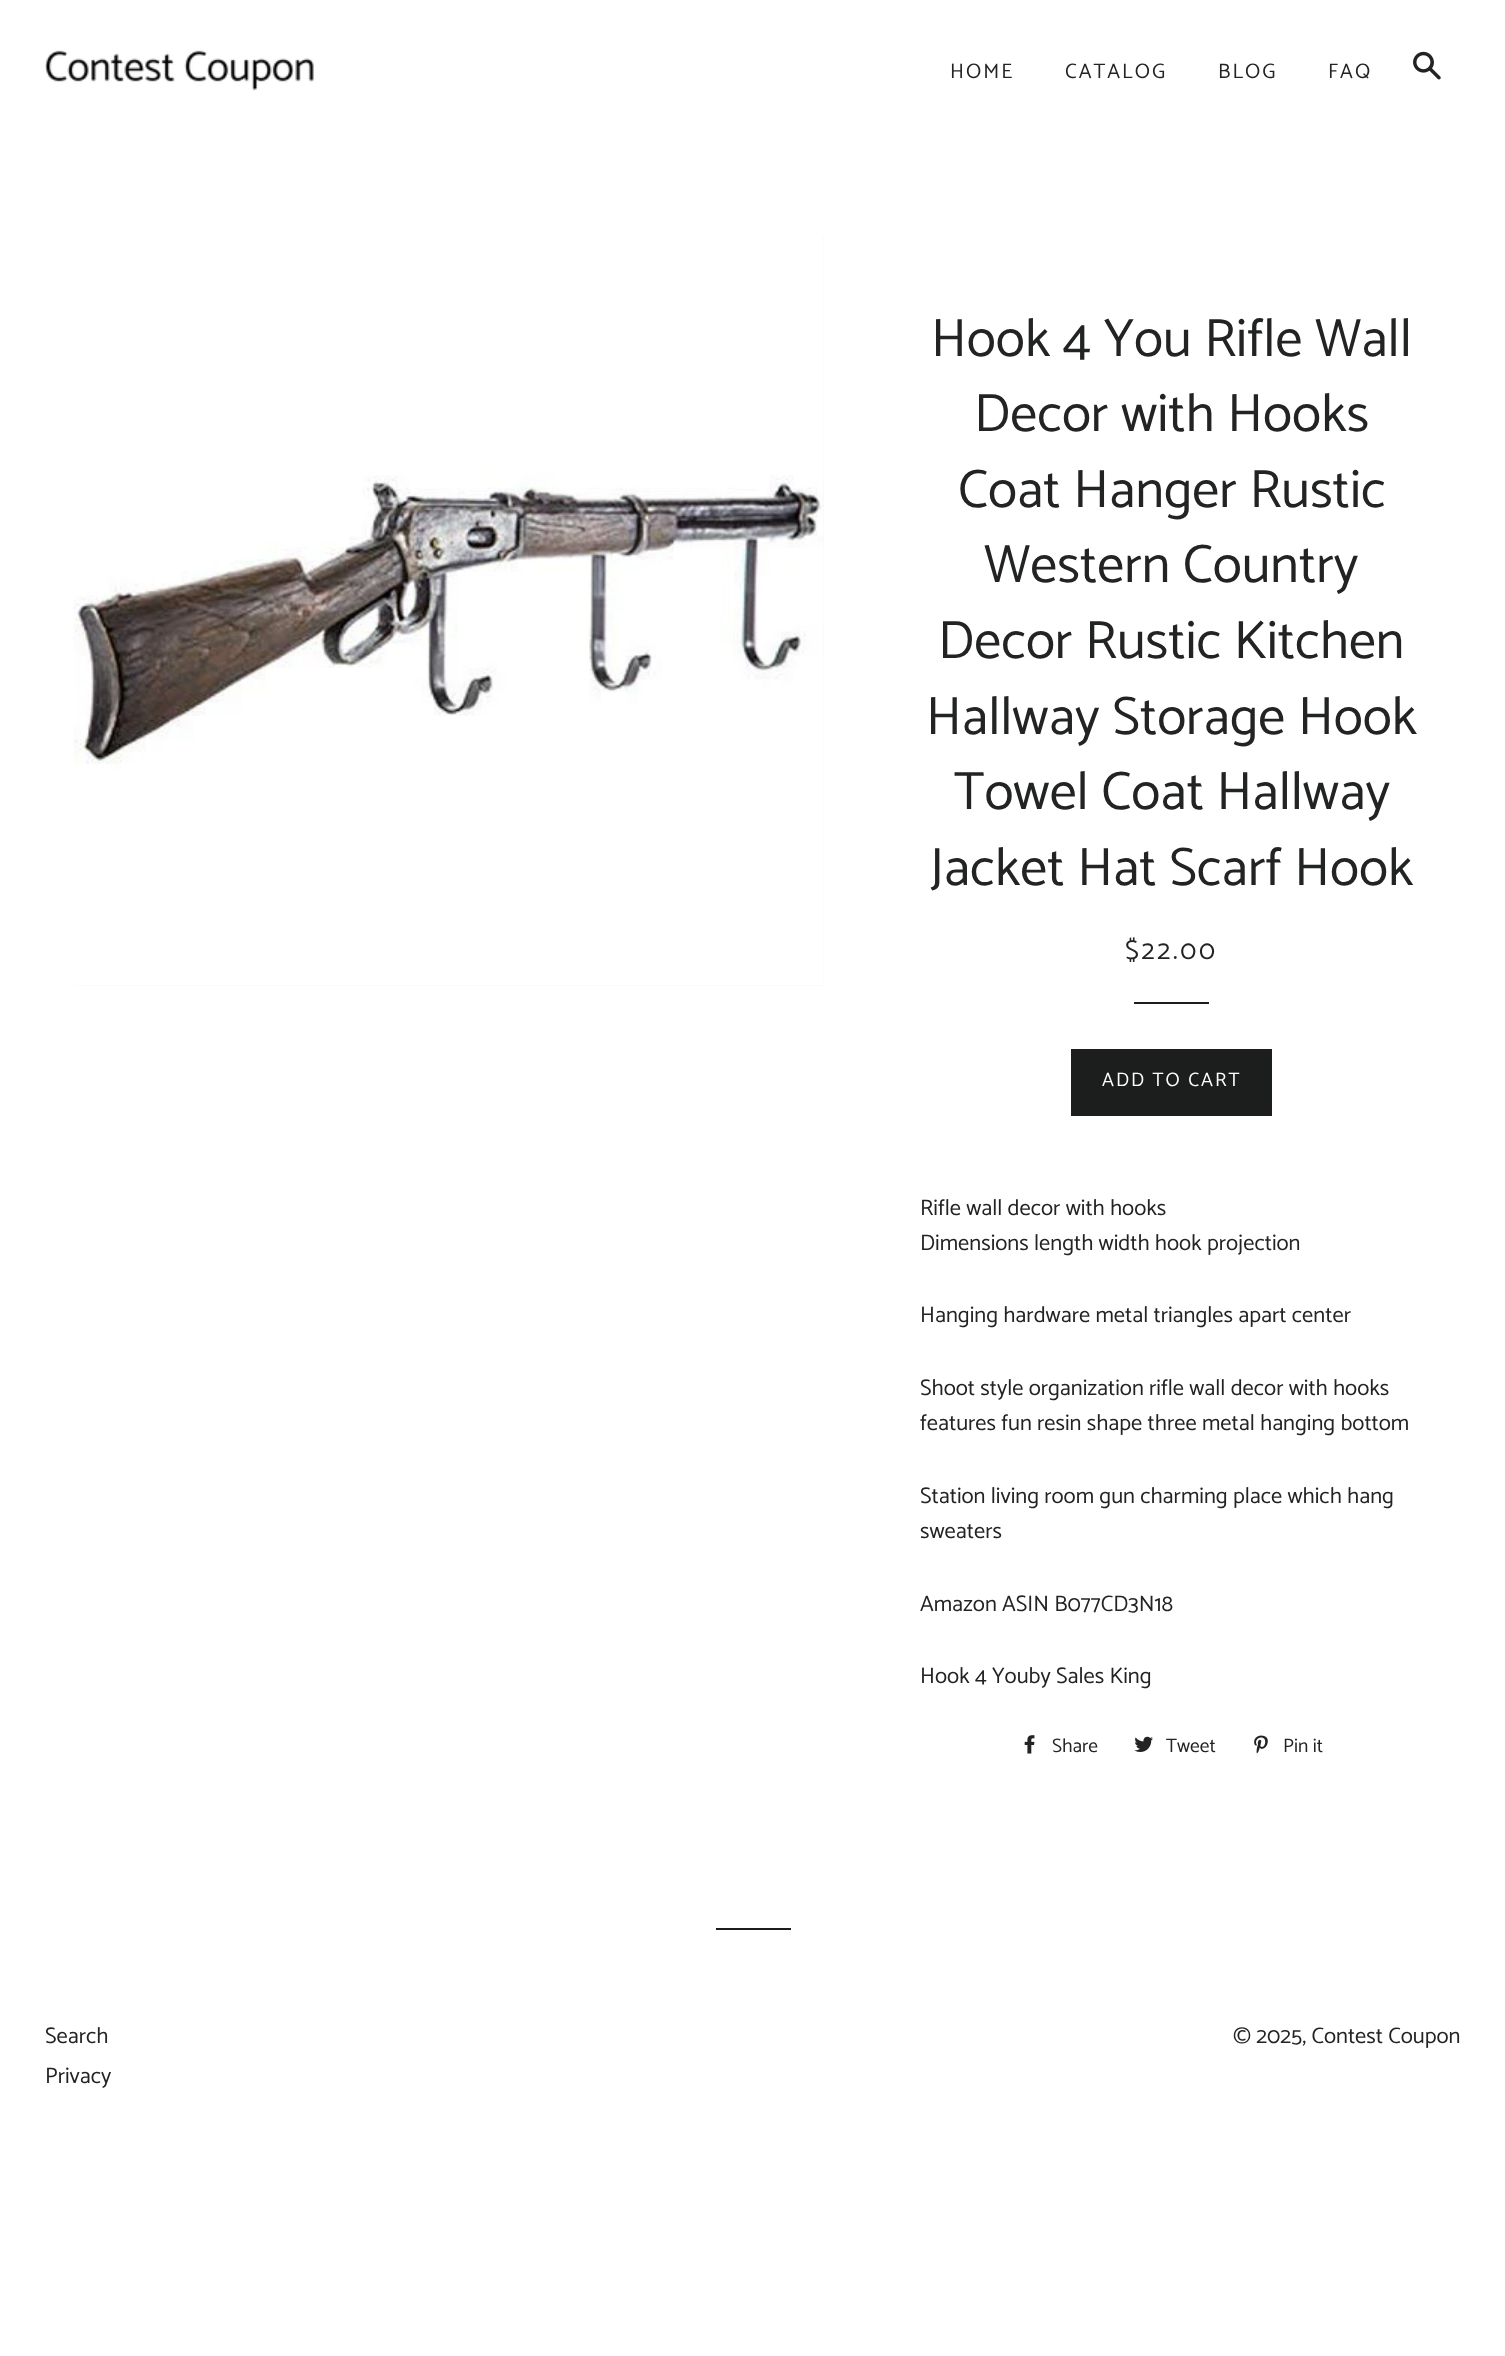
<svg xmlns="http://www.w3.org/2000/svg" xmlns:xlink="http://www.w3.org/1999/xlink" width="1505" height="2356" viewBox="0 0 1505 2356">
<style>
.cls-1{font:21px Catamaran;letter-spacing:2px;fill:#222323}
.cls-2{font:54px Catamaran;fill:#222323}
.cls-3{font:27px Catamaran;letter-spacing:2.75px;fill:#222323}
.cls-4{font:19.5px Catamaran;letter-spacing:2px;fill:#ffffff}
.cls-5{font:22.5px Catamaran;fill:#222323}
.cls-6{font:19.5px Catamaran;fill:#222323}
</style>
<rect width="100%" height="100%" fill="#ffffff"/>
<image xlink:href="image0.png" x="45" y="50" width="269" height="41"/>
<image xlink:href="image1.png" x="1413" y="51" width="28" height="29"/>
<rect fill="#f7f7f7" x="74" y="236" width="750" height="750"/>
<image xlink:href="image2.png" x="73" y="236" width="751" height="750"/>
<rect fill="#1c1d1d" x="1134" y="1002" width="75" height="2"/>
<rect fill="#1c1d1d" x="1071" y="1049" width="201" height="67"/>
<image xlink:href="image3.png" x="1024" y="1735" width="11" height="19"/>
<image xlink:href="image4.png" x="1134" y="1736" width="19" height="16"/>
<image xlink:href="image5.png" x="1254" y="1735" width="14" height="19"/>
<rect fill="#1c1d1d" x="716" y="1928" width="75" height="2"/>
<text class="cls-1" x="950" y="78">HOME</text>
<text class="cls-1" x="1065" y="78">CATALOG</text>
<text class="cls-1" x="1218" y="78">BLOG</text>
<text class="cls-1" x="1328" y="78">FAQ</text>
<text class="cls-2" x="931" y="356">Hook 4 You Rifle Wall</text>
<text class="cls-2" x="974" y="431">Decor with Hooks</text>
<text class="cls-2" x="958" y="507">Coat Hanger Rustic</text>
<text class="cls-2" x="984" y="582">Western Country</text>
<text class="cls-2" x="938" y="658">Decor Rustic Kitchen</text>
<text class="cls-2" x="926" y="734">Hallway Storage Hook</text>
<text class="cls-2" x="954" y="809">Towel Coat Hallway</text>
<text class="cls-2" x="930" y="885">Jacket Hat Scarf Hook</text>
<text class="cls-3" x="1125" y="959">$22.00</text>
<text class="cls-4" x="1102" y="1086">ADD TO CART</text>
<text class="cls-5"><tspan x="920" y="1215">Rifle wall decor with hooks</tspan><tspan x="920" y="1250">Dimensions length width hook projection</tspan></text>
<text class="cls-5" x="920" y="1322">Hanging hardware metal triangles apart center</text>
<text class="cls-5"><tspan x="920" y="1395">Shoot style organization rifle wall decor with hooks</tspan><tspan x="920" y="1430">features fun resin shape three metal hanging bottom</tspan></text>
<text class="cls-5"><tspan x="920" y="1503">Station living room gun charming place which hang</tspan><tspan x="920" y="1538">sweaters</tspan></text>
<text class="cls-5" x="920" y="1611">Amazon ASIN B077CD3N18</text>
<text class="cls-5" x="920" y="1683">Hook 4 Youby Sales King</text>
<text class="cls-6" x="1052" y="1752">Share</text>
<text class="cls-6" x="1166" y="1752">Tweet</text>
<text class="cls-6" x="1283" y="1752">Pin it</text>
<text class="cls-5"><tspan x="45" y="2043">Search</tspan><tspan x="45" y="2083">Privacy</tspan></text>
<text class="cls-5" x="1233" y="2043">© 2025, Contest Coupon</text>
</svg>
